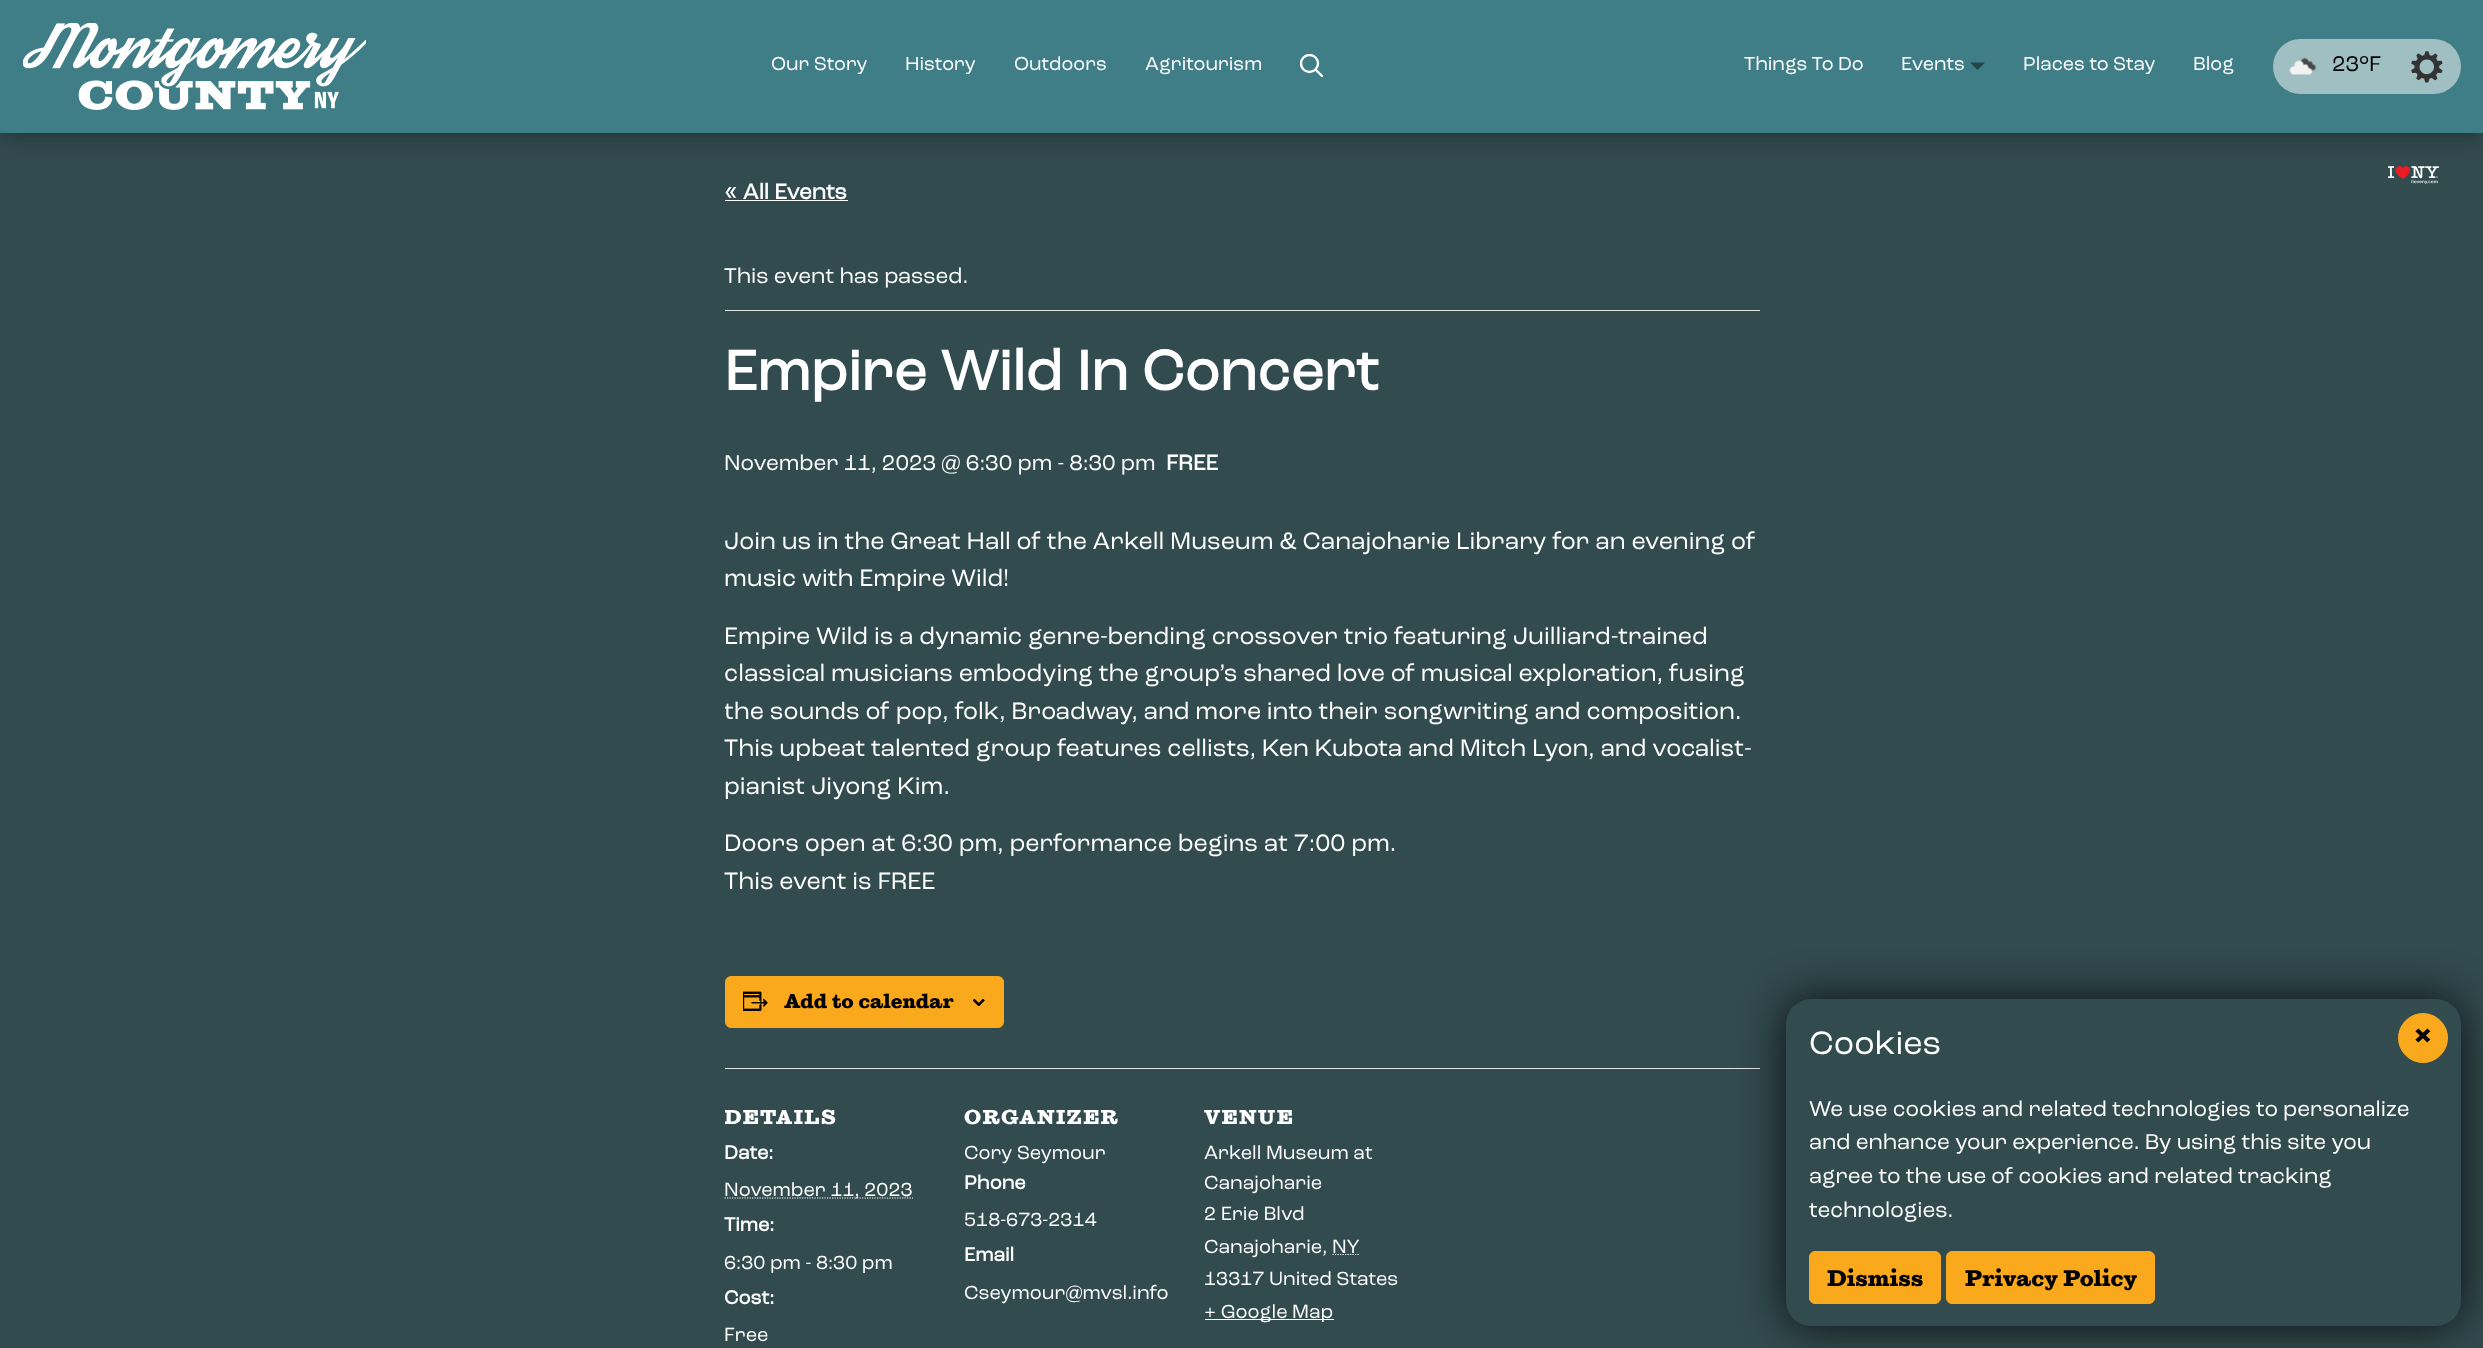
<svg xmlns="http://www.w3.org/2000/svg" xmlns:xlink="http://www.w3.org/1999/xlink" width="2483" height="1348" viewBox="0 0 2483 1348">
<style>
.cls-1{font:19.75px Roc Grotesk;fill:#ffffff}
.cls-2{font:22.5px Roc Grotesk;fill:#000000}
.cls-3{font:bold 22.5px Roc Grotesk;fill:#ffffff}
.cls-4{font:22.5px Roc Grotesk;fill:#ffffff}
.cls-5{font:bold 58.75px Roc Grotesk;fill:#ffffff}
.cls-6{font:25px Roc Grotesk;fill:#ffffff}
.cls-7{font:900 20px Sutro;fill:#000000}
.cls-8{font:900 20px Sutro;letter-spacing:1.25px;fill:#ffffff}
.cls-9{font:bold 20px Roc Grotesk;fill:#ffffff}
.cls-10{font:20px Roc Grotesk;fill:#ffffff}
.cls-11{font:34px Roc Grotesk;fill:#ffffff}
.cls-12{font:900 34px Sutro;fill:#000000}
.cls-13{font:900 22.5px Sutro;fill:#000000}
</style>
<defs>
<clipPath id="clip1"><rect x="1300" y="54" width="24" height="24"/></clipPath>
<clipPath id="clip2"><rect x="725" y="524" width="1035" height="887"/></clipPath>
</defs>
<rect width="100%" height="100%" fill="#324b4f"/>
<rect fill="#000000" fill-opacity="0.4" filter="blur(12.5px)" x="0" y="0" width="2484" height="133"/>
<rect fill="#407e87" x="0" y="0" width="2483" height="133"/>
<image xlink:href="image0.png" x="23" y="23" width="343" height="87"/>
<g clip-path="url(#clip1)">
<circle fill="none" stroke="#ffffff" stroke-width="2.4" cx="1309.5" cy="63.5" r="8.5"/>
</g>
<path fill="none" stroke="#ffffff" stroke-width="2.4" stroke-linecap="round" d="M1316 70L1322 76"/>
<path fill="#23454a" d="M1970 62.5H1985L1977.5 70Z"/>
<rect fill="#a0bfc3" x="2273" y="39" width="188" height="55" rx="27.5"/>
<image xlink:href="image1.png" x="2289" y="57" width="28" height="18"/>
<image xlink:href="image2.png" x="2411" y="51" width="32" height="32"/>
<image xlink:href="image3.png" x="2388" y="166" width="51" height="18"/>
<rect fill="#ffffff" x="725" y="200" width="123" height="1"/>
<rect fill="#e4e4e4" x="725" y="310" width="1035" height="1"/>
<rect fill="#fba91c" stroke="#fba91c" x="725.5" y="976.5" width="278" height="51" rx="5.5"/>
<image xlink:href="image4.png" x="743" y="991" width="25" height="20"/>
<image xlink:href="image5.png" x="973" y="999" width="12" height="7"/>
<rect fill="#e4e4e4" x="725" y="1068" width="1035" height="1"/>
<path fill="none" stroke="#ffffff" stroke-width="1.2" stroke-dasharray="1.25 1.25" d="M724.5 1198H913"/>
<path fill="none" stroke="#ffffff" stroke-width="1.2" stroke-dasharray="1.25 1.25" d="M1332.5 1254.5H1360"/>
<rect fill="#ffffff" x="1205" y="1319" width="129" height="1"/>
<rect fill="#000000" fill-opacity="0.8" filter="blur(22.5px)" x="1786" y="999" width="675" height="327" rx="25"/>
<rect fill="#324b4f" x="1786" y="999" width="675" height="327" rx="25"/>
<circle fill="#fba91c" stroke="#fba91c" cx="2423" cy="1038" r="24.5"/>
<rect fill="#fba91c" stroke="#fba91c" x="1809.5" y="1251.5" width="131" height="52" rx="5.5"/>
<rect fill="#fba91c" stroke="#fba91c" x="1946.5" y="1251.5" width="208" height="52" rx="5.5"/>
<text class="cls-1" x="771" y="70">Our Story</text>
<text class="cls-1" x="905" y="70">History</text>
<text class="cls-1" x="1014" y="70">Outdoors</text>
<text class="cls-1" x="1145" y="70">Agritourism</text>
<text class="cls-1" x="1744" y="70">Things To Do</text>
<text class="cls-1" x="1901" y="70">Events</text>
<text class="cls-1" x="2023" y="70">Places to Stay</text>
<text class="cls-1" x="2193" y="70">Blog</text>
<text class="cls-2" x="2332" y="71">23°F</text>
<text class="cls-3" x="724" y="199">« All Events</text>
<text class="cls-4" x="724" y="283">This event has passed.</text>
<text class="cls-5" x="724" y="390">Empire Wild In Concert</text>
<text class="cls-4" x="724" y="470">November 11, 2023 @ 6:30 pm - 8:30 pm</text>
<text class="cls-3" x="1166" y="470">FREE</text>
<text class="cls-6"><tspan x="724" y="549">Join us in the Great Hall of the Arkell Museum &amp; Canajoharie Library for an evening of</tspan><tspan x="724" y="586">music with Empire Wild!</tspan></text>
<text class="cls-6"><tspan x="724" y="644">Empire Wild is a dynamic genre-bending crossover trio featuring Juilliard-trained</tspan><tspan x="724" y="681">classical musicians embodying the group’s shared love of musical exploration, fusing</tspan></text>
<g clip-path="url(#clip2)">
<text class="cls-6" x="724" y="719">the sounds of pop, folk, Broadway, and more into their songwriting and composition.</text>
</g>
<text class="cls-6"><tspan x="724" y="756">This upbeat talented group features cellists, Ken Kubota and Mitch Lyon, and vocalist-</tspan><tspan x="724" y="794">pianist Jiyong Kim.</tspan></text>
<text class="cls-6"><tspan x="724" y="851">Doors open at 6:30 pm, performance begins at 7:00 pm.</tspan><tspan x="724" y="889">This event is FREE</tspan></text>
<text class="cls-7" x="784" y="1008">Add to calendar</text>
<g clip-path="url(#clip2)">
<text class="cls-8" x="724" y="1124">DETAILS</text>
</g>
<text class="cls-9" x="724" y="1159">Date:</text>
<text class="cls-10" x="724" y="1196">November 11, 2023</text>
<text class="cls-9" x="724" y="1231">Time:</text>
<text class="cls-10" x="724" y="1269">6:30 pm - 8:30 pm</text>
<text class="cls-9" x="724" y="1304">Cost:</text>
<text class="cls-10" x="724" y="1341">Free</text>
<text class="cls-8" x="964" y="1124">ORGANIZER</text>
<text class="cls-10" x="964" y="1159">Cory Seymour</text>
<text class="cls-9" x="964" y="1189">Phone</text>
<text class="cls-10" x="964" y="1226">518-673-2314</text>
<text class="cls-9" x="964" y="1261">Email</text>
<text class="cls-10" x="964" y="1299">Cseymour@mvsl.info</text>
<text class="cls-8" x="1204" y="1124">VENUE</text>
<text class="cls-10"><tspan x="1204" y="1159">Arkell Museum at</tspan><tspan x="1204" y="1189">Canajoharie</tspan><tspan x="1204" y="1220">2 Erie Blvd</tspan><tspan x="1204" y="1253">Canajoharie, NY</tspan><tspan x="1204" y="1285">13317 United States</tspan><tspan x="1204" y="1318">+ Google Map</tspan></text>
<text class="cls-11" x="1809" y="1054">Cookies</text>
<text class="cls-12" x="2414" y="1046">×</text>
<text class="cls-4"><tspan x="1809" y="1116">We use cookies and related technologies to personalize</tspan><tspan x="1809" y="1149">and enhance your experience. By using this site you</tspan><tspan x="1809" y="1183">agree to the use of cookies and related tracking</tspan><tspan x="1809" y="1217">technologies.</tspan></text>
<text class="cls-13" x="1827" y="1286">Dismiss</text>
<text class="cls-13" x="1965" y="1286">Privacy Policy</text>
</svg>
